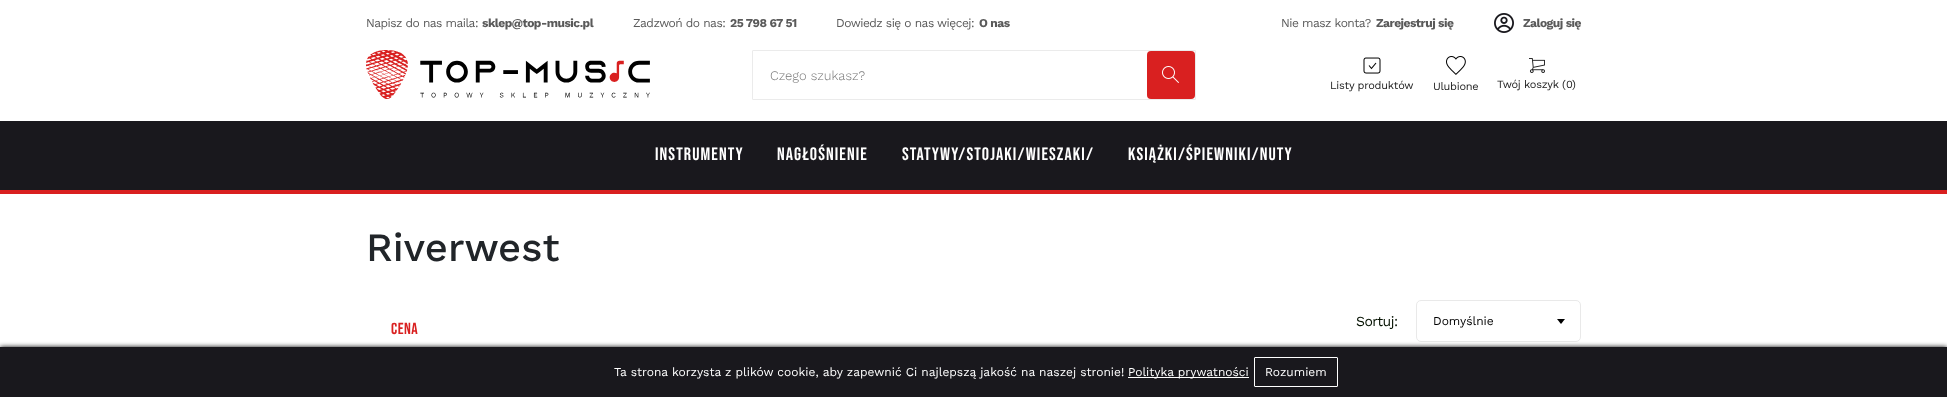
<svg xmlns="http://www.w3.org/2000/svg" xmlns:xlink="http://www.w3.org/1999/xlink" width="1947" height="397" viewBox="0 0 1947 397">
<style>
.cls-1{font:12px Work Sans;letter-spacing:-0.5px;fill:#5a5a5a}
.cls-2{font:bold 12px Work Sans;letter-spacing:-0.5px;fill:#5a5a5a}
.cls-3{font:300 13px Work Sans;fill:#757575}
.cls-4{font:11px Work Sans;letter-spacing:-0.25px;fill:#202020}
.cls-5{font:18px Bebas Neue;letter-spacing:1.1px;fill:#ffffff}
.cls-6{font:500 40px Work Sans;fill:#212529}
.cls-7{font:16px Bebas Neue;letter-spacing:0.5px;fill:#d92020}
.cls-8{font:14px Work Sans;letter-spacing:-0.5px;fill:#041100}
.cls-9{font:12px Work Sans;fill:#000000}
.cls-10{font:12px Work Sans;fill:#ffffff}
</style>
<rect width="100%" height="100%" fill="#ffffff"/>
<image xlink:href="image0.png" x="1494" y="13" width="20" height="20"/>
<image xlink:href="image1.png" x="366" y="50" width="284" height="49"/>
<rect fill="none" stroke="#ebebeb" x="752.5" y="50.5" width="443" height="49" rx="0.5"/>
<rect fill="#d92020" x="1147" y="51" width="48" height="48" rx="4"/>
<image xlink:href="image2.png" x="1162" y="66" width="17" height="17"/>
<image xlink:href="image3.png" x="1363" y="57" width="18" height="17"/>
<image xlink:href="image4.png" x="1446" y="56" width="20" height="19"/>
<image xlink:href="image5.png" x="1529" y="58" width="16" height="15"/>
<rect fill="#19181d" x="0" y="121" width="1947" height="69"/>
<rect fill="#d92020" x="0" y="190" width="1947" height="4"/>
<path fill="#000000" d="M1561 324L1557 319H1565Z"/>
<rect fill="none" stroke="#e9e9e9" x="1416.5" y="300.5" width="164" height="41" rx="4.5"/>
<rect fill="#000000" filter="blur(2.5px)" x="0" y="347" width="1947" height="50"/>
<rect fill="#19181d" x="0" y="347" width="1947" height="50"/>
<rect fill="#ffffff" x="1128" y="377" width="121" height="1"/>
<rect fill="none" stroke="#ffffff" x="1254.5" y="357.5" width="83" height="29" rx="0.5"/>
<text class="cls-1" x="366" y="27">Napisz do nas maila:</text>
<text class="cls-2" x="482" y="27">sklep@top-music.pl</text>
<text class="cls-1" x="633" y="27">Zadzwoń do nas:</text>
<text class="cls-2" x="730" y="27">25 798 67 51</text>
<text class="cls-1" x="836" y="27">Dowiedz się o nas więcej:</text>
<text class="cls-2" x="979" y="27">O nas</text>
<text class="cls-1" x="1281" y="27">Nie masz konta?</text>
<text class="cls-2" x="1376" y="27">Zarejestruj się</text>
<text class="cls-2" x="1523" y="27">Zaloguj się</text>
<text class="cls-3" x="770" y="80">Czego szukasz?</text>
<text class="cls-4" x="1330" y="89">Listy produktów</text>
<text class="cls-4" x="1433" y="90">Ulubione</text>
<text class="cls-4" x="1497" y="88">Twój koszyk (</text>
<text class="cls-4" x="1566" y="88">0</text>
<text class="cls-4" x="1572" y="88">)</text>
<text class="cls-5" x="655" y="160">Instrumenty</text>
<text class="cls-5" x="777" y="160">Nagłośnienie</text>
<text class="cls-5" x="902" y="160">Statywy/Stojaki/Wieszaki/</text>
<text class="cls-5" x="1128" y="160">Książki/Śpiewniki/Nuty</text>
<text class="cls-6" x="366" y="261">Riverwest</text>
<text class="cls-7" x="391" y="334">Cena</text>
<text class="cls-8" x="1356" y="326">Sortuj:</text>
<text class="cls-9" x="1433" y="325">Domyślnie</text>
<text class="cls-10" x="614" y="376">Ta strona korzysta z plików cookie, aby zapewnić Ci najlepszą jakość na naszej stronie!</text>
<text class="cls-10" x="1128" y="376">Polityka prywatności</text>
<text class="cls-10" x="1265" y="376">Rozumiem</text>
</svg>
